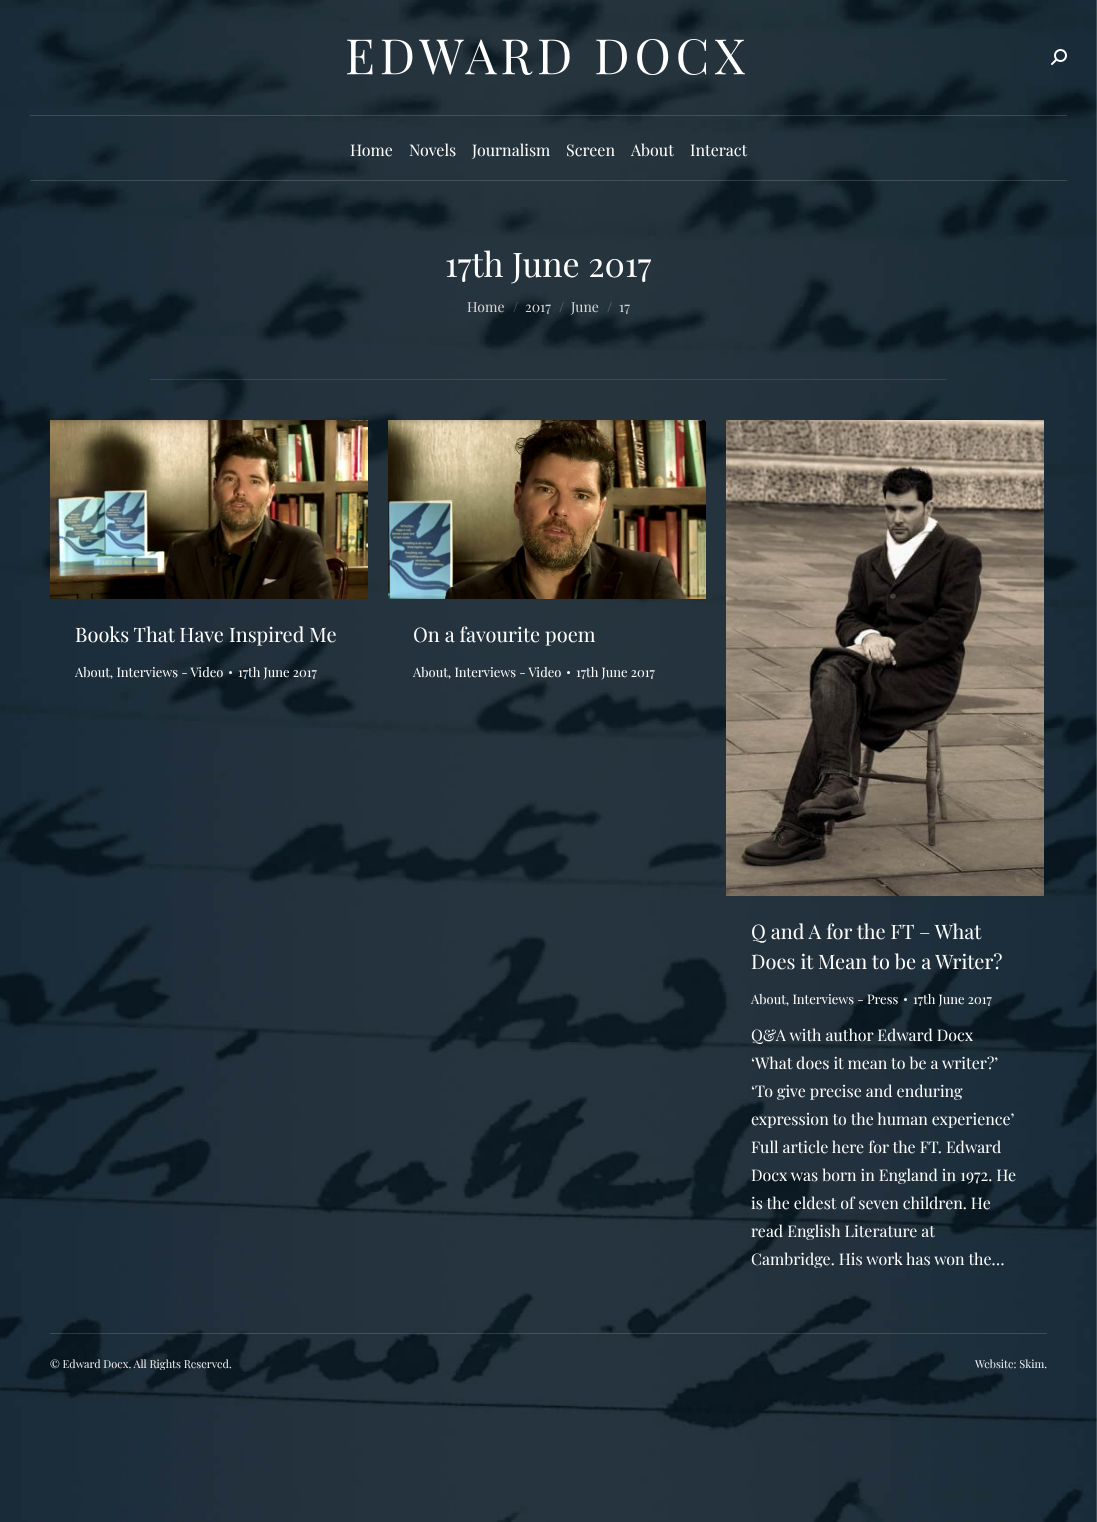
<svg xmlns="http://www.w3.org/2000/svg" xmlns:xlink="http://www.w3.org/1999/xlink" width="1097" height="1522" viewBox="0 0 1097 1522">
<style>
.cls-1{font:16px Playfair Display;fill:#ffffff}
.cls-2{font:34px Playfair Display;fill:#ffffff}
.cls-3{font:14px Playfair Display;fill:#dbd4d4}
.cls-4{font:14px Playfair Display;fill:#767a7e}
.cls-5{font:14px Playfair Display;fill:#7f8387}
.cls-6{font:20px Playfair Display;fill:#ffffff}
.cls-7{font:13px Playfair Display;fill:#ffffff}
.cls-8{font:11px Playfair Display;fill:#eeeeee}
</style>
<rect width="100%" height="100%" fill="#ffffff"/>
<image xlink:href="image0.png" x="0" y="0" width="1097" height="1522"/>
<image xlink:href="image1.png" x="347" y="39" width="398" height="36"/>
<image xlink:href="image2.png" x="1051" y="49" width="16" height="16"/>
<rect fill="#ffffff" fill-opacity="0.15" x="30" y="115" width="1037" height="1"/>
<rect fill="#ffffff" fill-opacity="0.15" x="30" y="180" width="1037" height="1"/>
<rect fill="#ffffff" fill-opacity="0.11" x="150" y="379" width="797" height="1"/>
<image xlink:href="image3.png" x="50" y="420" width="318" height="179"/>
<circle fill="#ffffff" cx="230.5" cy="672.5" r="1.5"/>
<image xlink:href="image4.png" x="388" y="420" width="318" height="179"/>
<circle fill="#ffffff" cx="568.5" cy="672.5" r="1.5"/>
<rect fill="#000000" fill-opacity="0.04" x="728" y="1213" width="1" height="1"/>
<image xlink:href="image5.png" x="726" y="420" width="318" height="476"/>
<circle fill="#ffffff" cx="905.5" cy="999.5" r="1.5"/>
<rect fill="#ffffff" fill-opacity="0.15" x="50" y="1333" width="997" height="1"/>
<text class="cls-1" x="350" y="156">Home</text>
<text class="cls-1" x="409" y="156">Novels</text>
<text class="cls-1" x="472" y="156">Journalism</text>
<text class="cls-1" x="566" y="156">Screen</text>
<text class="cls-1" x="631" y="156">About</text>
<text class="cls-1" x="690" y="156">Interact</text>
<text class="cls-2" x="445" y="277">17th June 2017</text>
<text class="cls-3" x="467" y="312">Home</text>
<text class="cls-4" x="513" y="312">/</text>
<text class="cls-3" x="525" y="312">2017</text>
<text class="cls-5" x="559" y="312">/</text>
<text class="cls-3" x="571" y="312">June</text>
<text class="cls-5" x="607" y="312">/</text>
<text class="cls-3" x="619" y="312">17</text>
<text class="cls-6" x="75" y="642">Books That Have Inspired Me</text>
<text class="cls-7" x="75" y="677">About, Interviews - Video</text>
<text class="cls-7" x="238" y="677">17th June 2017</text>
<text class="cls-6" x="413" y="642">On a favourite poem</text>
<text class="cls-7" x="413" y="677">About, Interviews - Video</text>
<text class="cls-7" x="576" y="677">17th June 2017</text>
<text class="cls-6"><tspan x="751" y="939">Q and A for the FT – What</tspan><tspan x="751" y="969">Does it Mean to be a Writer?</tspan></text>
<text class="cls-7" x="751" y="1004">About, Interviews - Press</text>
<text class="cls-7" x="913" y="1004">17th June 2017</text>
<text class="cls-1"><tspan x="751" y="1041">Q&amp;A with author Edward Docx</tspan><tspan x="751" y="1069">‘What does it mean to be a writer?’</tspan><tspan x="751" y="1097">‘To give precise and enduring</tspan><tspan x="751" y="1125">expression to the human experience’</tspan><tspan x="751" y="1153">Full article here for the FT. Edward</tspan><tspan x="751" y="1181">Docx was born in England in 1972. He</tspan><tspan x="751" y="1209">is the eldest of seven children. He</tspan><tspan x="751" y="1237">read English Literature at</tspan><tspan x="751" y="1265">Cambridge. His work has won the…</tspan></text>
<text class="cls-8" x="50" y="1368">© Edward Docx. All Rights Reserved.</text>
<text class="cls-8" x="975" y="1368">Website: Skim.</text>
</svg>
